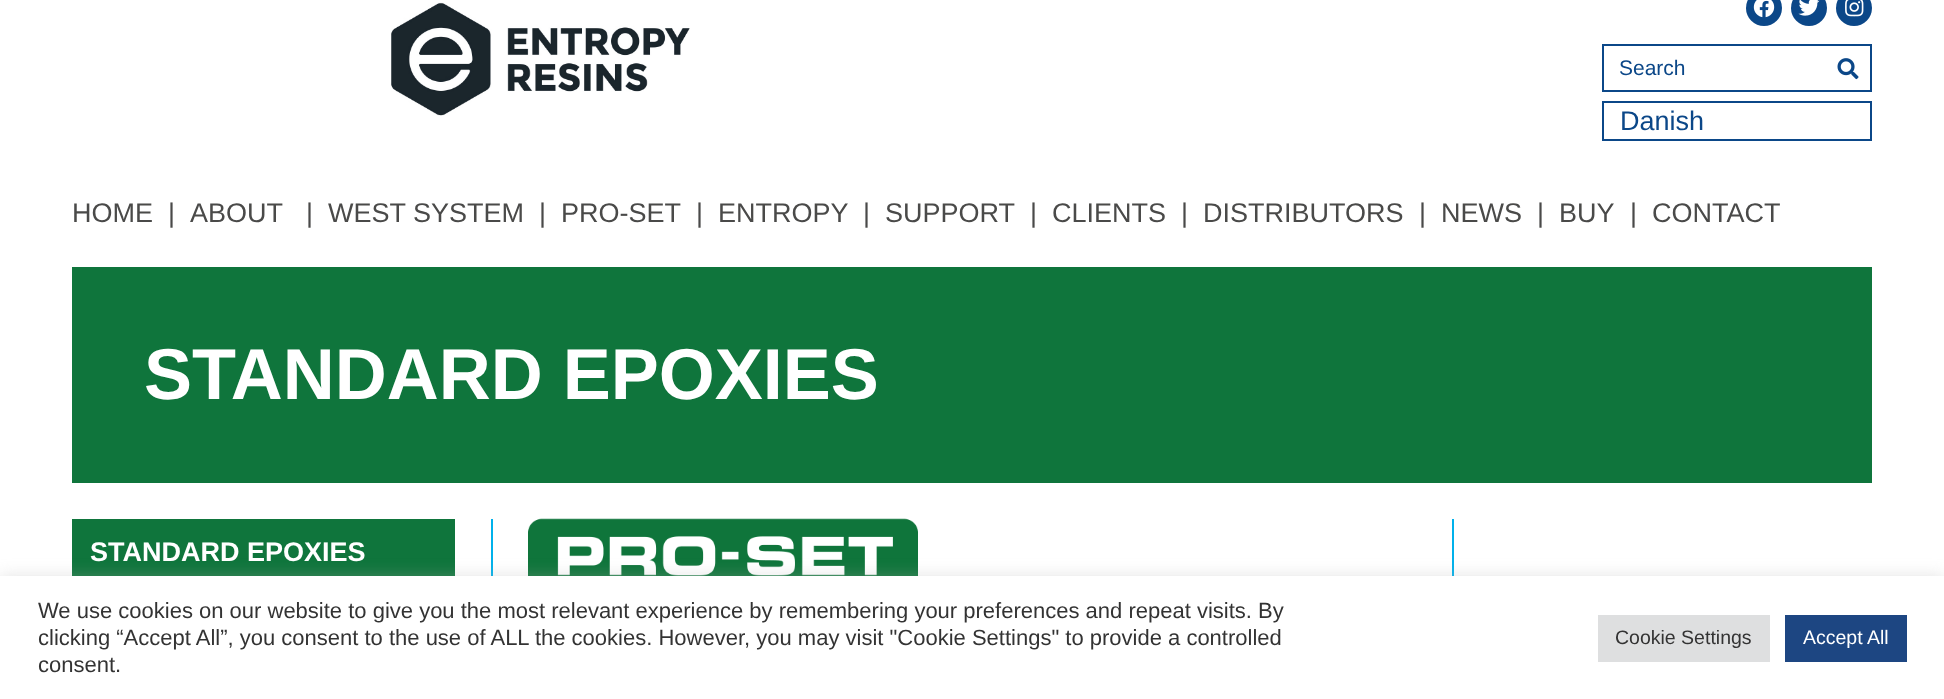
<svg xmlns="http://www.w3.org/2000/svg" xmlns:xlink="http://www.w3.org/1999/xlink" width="1944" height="699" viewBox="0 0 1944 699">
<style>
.cls-1{font:21px Liberation Sans;fill:#0b4788}
.cls-2{font:27px Liberation Sans;fill:#0b4788}
.cls-3{font:27px Liberation Sans;fill:#4a4a49}
.cls-4{font:bold 72px Liberation Sans;fill:#ffffff}
.cls-5{font:bold 27px Liberation Sans;fill:#ffffff}
.cls-6{font:22px Liberation Sans;fill:#333333}
.cls-7{font:19.5px Liberation Sans;fill:#333333}
.cls-8{font:19.5px Liberation Sans;fill:#ffffff}
</style>
<rect width="100%" height="100%" fill="#ffffff"/>
<image xlink:href="image0.png" x="391" y="2" width="299" height="114"/>
<circle fill="#0b4788" cx="1764" cy="8" r="18"/>
<image xlink:href="image1.png" x="1753" y="0" width="22" height="18"/>
<circle fill="#0b4788" cx="1809" cy="8" r="18"/>
<image xlink:href="image2.png" x="1798" y="0" width="22" height="16"/>
<circle fill="#0b4788" cx="1854" cy="8" r="18"/>
<image xlink:href="image3.png" x="1845" y="0" width="19" height="17"/>
<rect fill="none" stroke="#0b4788" stroke-width="2" x="1603" y="45" width="268" height="46"/>
<image xlink:href="image4.png" x="1837" y="58" width="22" height="22"/>
<rect fill="none" stroke="#0b4788" stroke-width="2" x="1603" y="102" width="268" height="38"/>
<rect fill="#0f753c" x="72" y="267" width="1800" height="216"/>
<rect fill="#00b1eb" x="491" y="519" width="2" height="57"/>
<rect fill="#0f753c" x="72" y="519" width="383" height="57"/>
<image xlink:href="image5.png" x="528" y="518" width="390" height="58"/>
<rect fill="#00b1eb" x="1452" y="519" width="2" height="57"/>
<rect fill="#acabab" fill-opacity="0.3" filter="blur(7.5px)" x="0" y="575" width="1944" height="123"/>
<rect fill="#ffffff" x="0" y="576" width="1944" height="123"/>
<rect fill="#dedfe0" x="1598" y="615" width="172" height="47"/>
<rect fill="#1d4682" x="1785" y="615" width="122" height="47"/>
<text class="cls-1" x="1619" y="75">Search</text>
<text class="cls-2" x="1620" y="130">Danish</text>
<text class="cls-3" x="72" y="222">HOME</text>
<text class="cls-3" x="168" y="222">|</text>
<text class="cls-3" x="190" y="222">ABOUT</text>
<text class="cls-3" x="306" y="222">|</text>
<text class="cls-3" x="328" y="222">WEST SYSTEM</text>
<text class="cls-3" x="539" y="222">|</text>
<text class="cls-3" x="561" y="222">PRO-SET</text>
<text class="cls-3" x="696" y="222">|</text>
<text class="cls-3" x="718" y="222">ENTROPY</text>
<text class="cls-3" x="863" y="222">|</text>
<text class="cls-3" x="885" y="222">SUPPORT</text>
<text class="cls-3" x="1030" y="222">|</text>
<text class="cls-3" x="1052" y="222">CLIENTS</text>
<text class="cls-3" x="1181" y="222">|</text>
<text class="cls-3" x="1203" y="222">DISTRIBUTORS</text>
<text class="cls-3" x="1419" y="222">|</text>
<text class="cls-3" x="1441" y="222">NEWS</text>
<text class="cls-3" x="1537" y="222">|</text>
<text class="cls-3" x="1559" y="222">BUY</text>
<text class="cls-3" x="1630" y="222">|</text>
<text class="cls-3" x="1652" y="222">CONTACT</text>
<text class="cls-4" x="144" y="399">STANDARD EPOXIES</text>
<text class="cls-5" x="90" y="561">STANDARD EPOXIES</text>
<text class="cls-6"><tspan x="38" y="618">We use cookies on our website to give you the most relevant experience by remembering your preferences and repeat visits. By</tspan><tspan x="38" y="645">clicking “Accept All”, you consent to the use of ALL the cookies. However, you may visit "Cookie Settings" to provide a controlled</tspan><tspan x="38" y="672">consent.</tspan></text>
<text class="cls-7" x="1615" y="644">Cookie Settings</text>
<text class="cls-8" x="1803" y="644">Accept All</text>
</svg>
